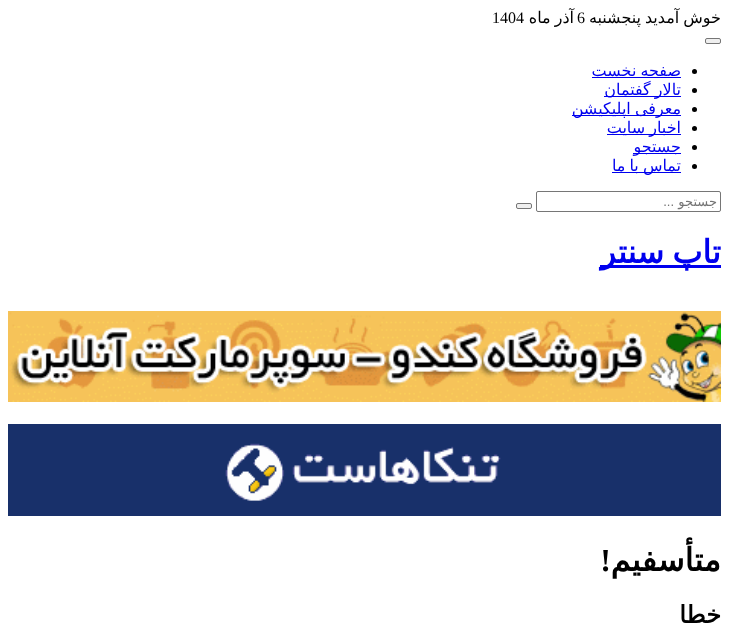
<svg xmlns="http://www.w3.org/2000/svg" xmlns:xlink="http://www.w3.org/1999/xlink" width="729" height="643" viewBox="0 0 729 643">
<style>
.cls-1{font:16px DejaVu Sans;direction:rtl;fill:#000000}
.cls-2{font:16px Liberation Serif;fill:#000000}
.cls-3{font:16px DejaVu Sans;direction:rtl;fill:#0000ee}
.cls-4{font:13px DejaVu Sans;direction:rtl;fill:#757575}
.cls-5{font:13px Liberation Sans;direction:rtl;fill:#757575}
.cls-6{font:bold 32px DejaVu Sans;direction:rtl;fill:#0000ee}
.cls-7{font:bold 32px DejaVu Sans;direction:rtl;fill:#000000}
.cls-8{font:bold 32px Liberation Serif;direction:rtl;fill:#000000}
.cls-9{font:bold 24px DejaVu Sans;direction:rtl;fill:#000000}
</style>
<rect width="100%" height="100%" fill="#ffffff"/>
<rect fill="#efefef" stroke="#767676" x="705.5" y="38.5" width="15" height="5" rx="1.5"/>
<circle fill="#000000" cx="694.5" cy="71.5" r="2.5"/>
<rect fill="#0000ee" x="592" y="77" width="89" height="1"/>
<circle fill="#000000" cx="694.5" cy="90.5" r="2.5"/>
<rect fill="#0000ee" x="604" y="96" width="77" height="1"/>
<circle fill="#000000" cx="694.5" cy="109.5" r="2.5"/>
<rect fill="#0000ee" x="572" y="115" width="109" height="1"/>
<circle fill="#000000" cx="694.5" cy="128.5" r="2.5"/>
<rect fill="#0000ee" x="607" y="134" width="74" height="1"/>
<circle fill="#000000" cx="694.5" cy="147.5" r="2.5"/>
<rect fill="#0000ee" x="633" y="153" width="48" height="1"/>
<circle fill="#000000" cx="694.5" cy="166.5" r="2.5"/>
<rect fill="#0000ee" x="612" y="172" width="69" height="1"/>
<rect fill="none" stroke="#767676" x="536.5" y="191.5" width="184" height="20" rx="1.5"/>
<rect fill="#efefef" stroke="#767676" x="516.5" y="203.5" width="15" height="5" rx="1.5"/>
<rect fill="#0000ee" x="600" y="265" width="121" height="3"/>
<image xlink:href="image0.png" x="8" y="311" width="713" height="91"/>
<image xlink:href="image1.png" x="8" y="424" width="713" height="92"/>
<text class="cls-1" x="721" y="23" word-spacing="-1">خوش آمدید</text>
<text class="cls-1" x="641" y="23">پنجشنبه</text>
<text class="cls-2" x="577" y="23">6</text>
<text class="cls-1" x="574" y="23" word-spacing="-1">آذر ماه</text>
<text class="cls-2" x="492" y="23">1404</text>
<text class="cls-3"><tspan x="681" y="76" word-spacing="-1">صفحه نخست</tspan><tspan x="681" y="95" word-spacing="-1">تالار گفتمان</tspan><tspan x="681" y="114" word-spacing="-1">معرفی اپلیکیشن</tspan><tspan x="681" y="133" word-spacing="-1">اخبار سایت</tspan><tspan x="681" y="152">جستجو</tspan><tspan x="681" y="171" word-spacing="-1">تماس با ما</tspan></text>
<text class="cls-4" x="717" y="206">جستجو</text>
<text class="cls-5" x="674" y="206">...</text>
<text class="cls-6" x="721" y="263" word-spacing="-2">تاپ سنتر</text>
<text class="cls-7" x="721" y="571">متأسفیم</text>
<text class="cls-8" x="611" y="571">!</text>
<text class="cls-9" x="721" y="623">خطا</text>
</svg>
